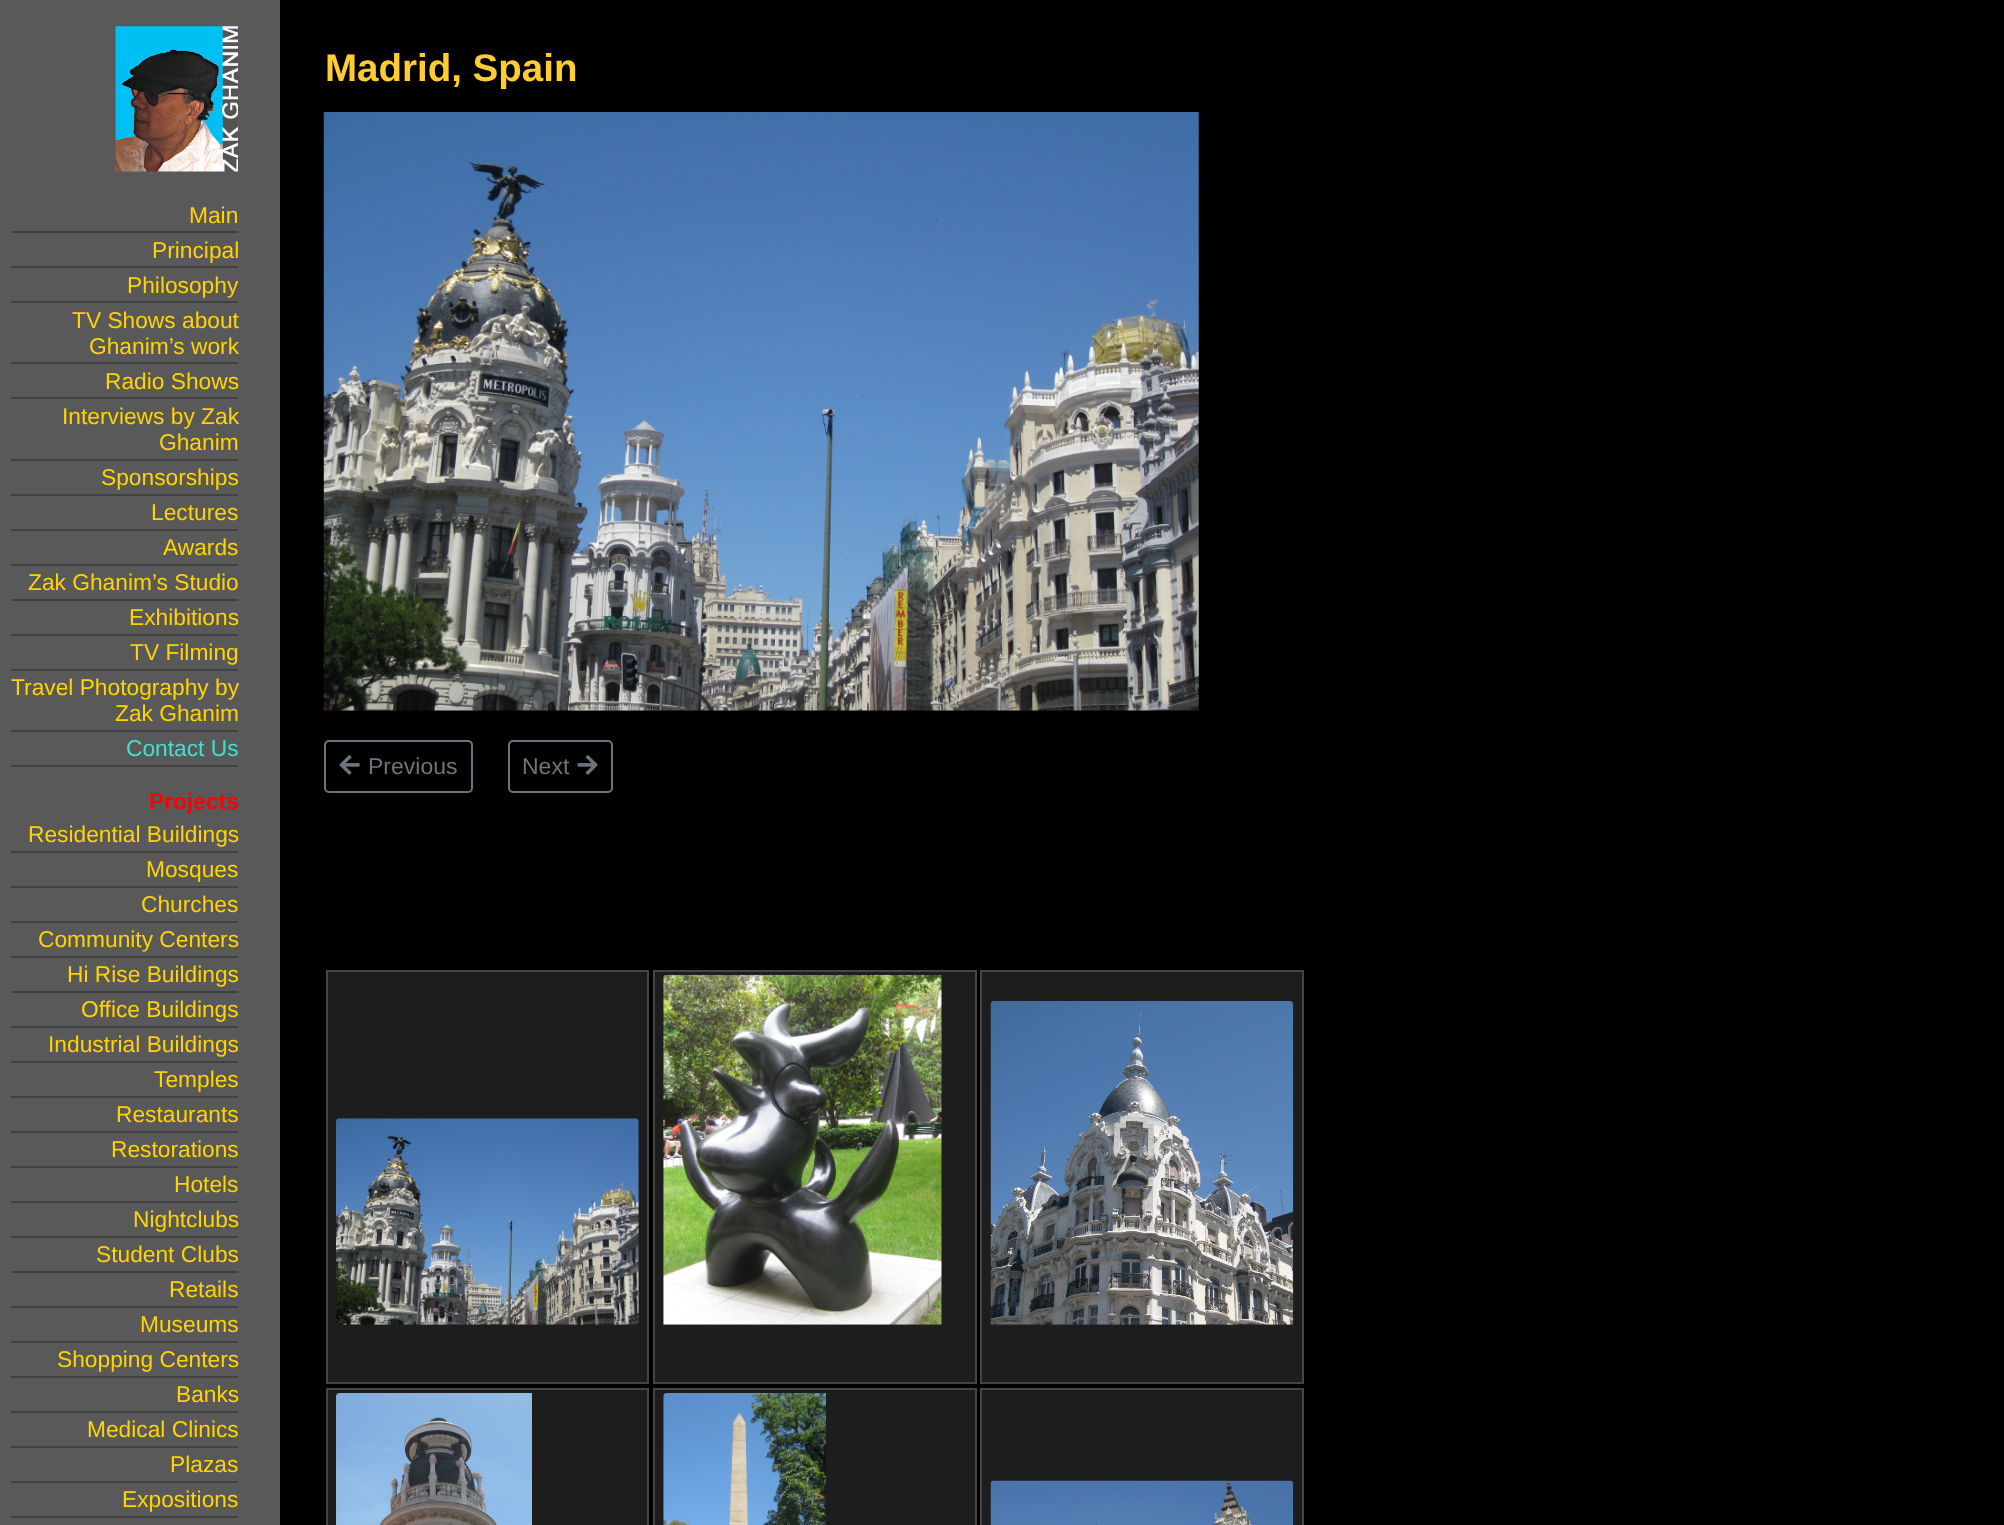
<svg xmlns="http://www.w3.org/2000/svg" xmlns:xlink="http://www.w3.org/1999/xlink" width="2004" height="1525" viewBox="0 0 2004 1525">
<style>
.cls-1{font:22.75px Liberation Sans;fill:#ffd303}
.cls-2{font:22.75px Liberation Sans;fill:#40e0d0}
.cls-3{font:bold 22.75px Liberation Sans;fill:#ff0000}
.cls-4{font:bold 38.5px Liberation Sans;fill:#ffcc33}
.cls-5{font:23px Liberation Sans;fill:#6c757d}
</style>
<rect width="100%" height="100%" fill="#000000"/>
<rect fill="#595959" x="0" y="0" width="280" height="1525"/>
<image xlink:href="image0.png" x="115" y="26" width="123" height="146"/>
<rect fill="#414141" x="11" y="231" width="227" height="2"/>
<rect fill="#414141" x="11" y="266" width="227" height="2"/>
<rect fill="#414141" x="11" y="301" width="227" height="2"/>
<rect fill="#414141" x="11" y="362" width="227" height="2"/>
<rect fill="#414141" x="11" y="397" width="227" height="2"/>
<rect fill="#414141" x="11" y="459" width="227" height="2"/>
<rect fill="#414141" x="11" y="494" width="227" height="2"/>
<rect fill="#414141" x="11" y="529" width="227" height="2"/>
<rect fill="#414141" x="11" y="564" width="227" height="2"/>
<rect fill="#414141" x="11" y="599" width="227" height="2"/>
<rect fill="#414141" x="11" y="634" width="227" height="2"/>
<rect fill="#414141" x="11" y="669" width="227" height="2"/>
<rect fill="#414141" x="11" y="730" width="227" height="2"/>
<rect fill="#414141" x="11" y="765" width="227" height="2"/>
<rect fill="#414141" x="11" y="851" width="227" height="2"/>
<rect fill="#414141" x="11" y="886" width="227" height="2"/>
<rect fill="#414141" x="11" y="921" width="227" height="2"/>
<rect fill="#414141" x="11" y="956" width="227" height="2"/>
<rect fill="#414141" x="11" y="991" width="227" height="2"/>
<rect fill="#414141" x="11" y="1026" width="227" height="2"/>
<rect fill="#414141" x="11" y="1061" width="227" height="2"/>
<rect fill="#414141" x="11" y="1096" width="227" height="2"/>
<rect fill="#414141" x="11" y="1131" width="227" height="2"/>
<rect fill="#414141" x="11" y="1166" width="227" height="2"/>
<rect fill="#414141" x="11" y="1201" width="227" height="2"/>
<rect fill="#414141" x="11" y="1236" width="227" height="2"/>
<rect fill="#414141" x="11" y="1271" width="227" height="2"/>
<rect fill="#414141" x="11" y="1306" width="227" height="2"/>
<rect fill="#414141" x="11" y="1341" width="227" height="2"/>
<rect fill="#414141" x="11" y="1376" width="227" height="2"/>
<rect fill="#414141" x="11" y="1411" width="227" height="2"/>
<rect fill="#414141" x="11" y="1446" width="227" height="2"/>
<rect fill="#414141" x="11" y="1481" width="227" height="2"/>
<rect fill="#414141" x="11" y="1516" width="227" height="2"/>
<image xlink:href="image1.png" x="323" y="112" width="876" height="599"/>
<rect fill="none" stroke="#6c757d" stroke-width="2" x="325" y="741" width="147" height="51" rx="4"/>
<image xlink:href="image2.png" x="339" y="755" width="21" height="20"/>
<rect fill="none" stroke="#6c757d" stroke-width="2" x="509" y="741" width="103" height="51" rx="4"/>
<image xlink:href="image3.png" x="577" y="755" width="21" height="20"/>
<rect fill="#1d1d1d" stroke="#454545" stroke-width="2" x="327" y="971" width="321" height="412"/>
<image xlink:href="image4.png" x="336" y="1118" width="303" height="207"/>
<rect fill="#1d1d1d" stroke="#454545" stroke-width="2" x="654" y="971" width="322" height="412"/>
<image xlink:href="image5.png" x="663" y="974" width="279" height="351"/>
<rect fill="#1d1d1d" stroke="#454545" stroke-width="2" x="981" y="971" width="322" height="412"/>
<image xlink:href="image6.png" x="990" y="1001" width="304" height="324"/>
<rect fill="#1d1d1d" stroke="#454545" stroke-width="2" x="327" y="1389" width="321" height="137"/>
<image xlink:href="image7.png" x="336" y="1393" width="196" height="132"/>
<rect fill="#1d1d1d" stroke="#454545" stroke-width="2" x="654" y="1389" width="322" height="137"/>
<image xlink:href="image8.png" x="663" y="1393" width="163" height="132"/>
<rect fill="#1d1d1d" stroke="#454545" stroke-width="2" x="981" y="1389" width="322" height="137"/>
<image xlink:href="image9.png" x="990" y="1480" width="304" height="45"/>
<text class="cls-1" x="189" y="223">Main</text>
<text class="cls-1" x="152" y="258">Principal</text>
<text class="cls-1" x="127" y="293">Philosophy</text>
<text class="cls-1" x="72" y="328">TV Shows about</text>
<text class="cls-1" x="89" y="354">Ghanim’s work</text>
<text class="cls-1" x="105" y="389">Radio Shows</text>
<text class="cls-1" x="62" y="424">Interviews by Zak</text>
<text class="cls-1" x="159" y="450">Ghanim</text>
<text class="cls-1" x="101" y="485">Sponsorships</text>
<text class="cls-1" x="151" y="520">Lectures</text>
<text class="cls-1" x="163" y="555">Awards</text>
<text class="cls-1" x="28" y="590">Zak Ghanim’s Studio</text>
<text class="cls-1" x="129" y="625">Exhibitions</text>
<text class="cls-1" x="130" y="660">TV Filming</text>
<text class="cls-1" x="11" y="695">Travel Photography by</text>
<text class="cls-1" x="115" y="721">Zak Ghanim</text>
<text class="cls-2" x="126" y="756">Contact Us</text>
<text class="cls-3" x="149" y="809">Projects</text>
<text class="cls-1" x="28" y="842">Residential Buildings</text>
<text class="cls-1" x="146" y="877">Mosques</text>
<text class="cls-1" x="141" y="912">Churches</text>
<text class="cls-1" x="38" y="947">Community Centers</text>
<text class="cls-1" x="67" y="982">Hi Rise Buildings</text>
<text class="cls-1" x="81" y="1017">Office Buildings</text>
<text class="cls-1" x="48" y="1052">Industrial Buildings</text>
<text class="cls-1" x="154" y="1087">Temples</text>
<text class="cls-1" x="116" y="1122">Restaurants</text>
<text class="cls-1" x="111" y="1157">Restorations</text>
<text class="cls-1" x="174" y="1192">Hotels</text>
<text class="cls-1" x="133" y="1227">Nightclubs</text>
<text class="cls-1" x="96" y="1262">Student Clubs</text>
<text class="cls-1" x="169" y="1297">Retails</text>
<text class="cls-1" x="140" y="1332">Museums</text>
<text class="cls-1" x="57" y="1367">Shopping Centers</text>
<text class="cls-1" x="176" y="1402">Banks</text>
<text class="cls-1" x="87" y="1437">Medical Clinics</text>
<text class="cls-1" x="170" y="1472">Plazas</text>
<text class="cls-1" x="122" y="1507">Expositions</text>
<text class="cls-4" x="325" y="81">Madrid, Spain</text>
<text class="cls-5" x="368" y="774">Previous</text>
<text class="cls-5" x="522" y="774">Next</text>
</svg>
